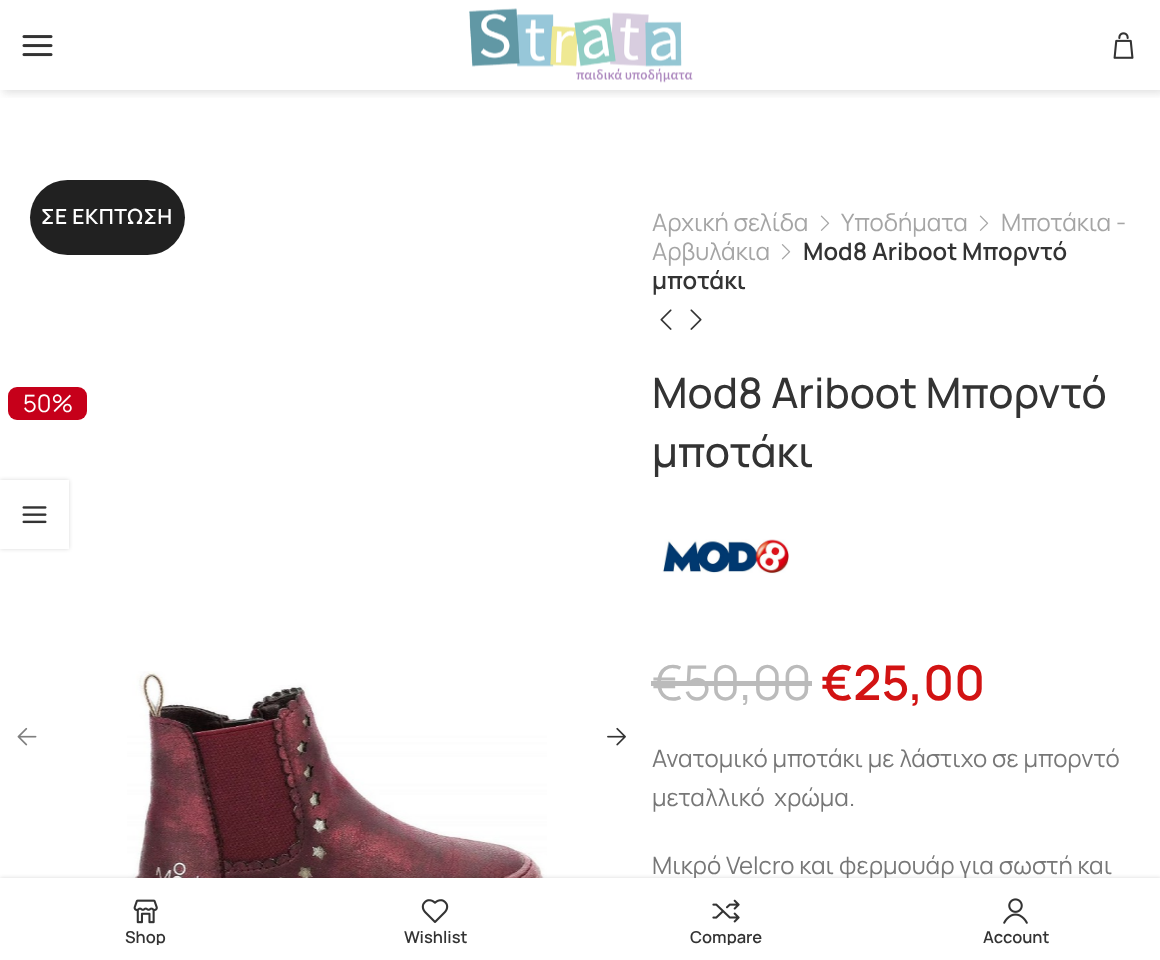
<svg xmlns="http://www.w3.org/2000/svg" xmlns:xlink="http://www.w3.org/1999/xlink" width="1160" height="960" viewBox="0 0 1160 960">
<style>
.cls-1{font:600 21px Manrope;letter-spacing:0.5px;fill:#ffffff}
.cls-2{font:24px Manrope;fill:#ffffff}
.cls-3{font:24px Manrope;fill:#a5a5a5}
.cls-4{font:600 24px Manrope;fill:#333333}
.cls-5{font:500 42px Manrope;fill:#333333}
.cls-6{font:48px Manrope;fill:#bbbbbb}
.cls-7{font:600 48px Manrope;fill:#d21313}
.cls-8{font:24px Manrope;fill:#777777}
.cls-9{font:600 16.5px Manrope;fill:#333333}
</style>
<defs>
<clipPath id="clip1"><rect x="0" y="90" width="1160" height="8"/></clipPath>
<clipPath id="clip2"><path d="M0 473H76V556H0ZM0 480H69V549H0Z" clip-rule="evenodd"/></clipPath>
<clipPath id="clip3"><rect x="15" y="929" width="261" height="16"/></clipPath>
<clipPath id="clip4"><rect x="596" y="929" width="261" height="16"/></clipPath>
</defs>
<rect width="100%" height="100%" fill="#ffffff"/>
<g clip-path="url(#clip1)">
<rect fill="#696969" fill-opacity="0.2" filter="blur(4px)" x="3" y="3" width="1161" height="90"/>
</g>
<image xlink:href="image0.png" x="22" y="35" width="31" height="22"/>
<image xlink:href="image1.png" x="469" y="8" width="224" height="75"/>
<image xlink:href="image2.png" x="1113" y="32" width="21" height="27"/>
<rect fill="#212121" x="30" y="180" width="155" height="75" rx="37.5"/>
<rect fill="#c6001a" x="8" y="387" width="79" height="33" rx="9"/>
<image xlink:href="image3.png" x="127" y="671" width="420" height="207"/>
<image xlink:href="image4.png" x="17" y="727" width="20" height="19"/>
<image xlink:href="image5.png" x="607" y="727" width="19" height="19"/>
<image xlink:href="image6.png" x="820" y="215" width="10" height="16"/>
<image xlink:href="image6.png" x="979" y="215" width="10" height="16"/>
<image xlink:href="image7.png" x="781" y="244" width="10" height="16"/>
<image xlink:href="image8.png" x="660" y="309" width="12" height="21"/>
<image xlink:href="image9.png" x="690" y="309" width="12" height="21"/>
<image xlink:href="image10.png" x="662" y="539" width="128" height="35"/>
<rect fill="#bbbbbb" x="651" y="681" width="161" height="5"/>
<g clip-path="url(#clip2)">
<rect fill="#000000" fill-opacity="0.15" filter="blur(2px)" x="0" y="480" width="69" height="69"/>
</g>
<image xlink:href="image11.png" x="22" y="506" width="25" height="18"/>
<rect fill="#000000" fill-opacity="0.15" filter="blur(2px)" x="0" y="878" width="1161" height="82"/>
<text class="cls-1" x="41" y="224">ΣΕ ΕΚΠΤΩΣΗ</text>
<text class="cls-2" x="23" y="412">50%</text>
<text class="cls-3" x="652" y="231">Αρχική σελίδα</text>
<text class="cls-3" x="841" y="231">Υποδήματα</text>
<text class="cls-3" x="1001" y="231">Μποτάκια -</text>
<text class="cls-3" x="652" y="260">Αρβυλάκια</text>
<text class="cls-4" x="803" y="260">Mod8 Ariboot Μπορντό</text>
<text class="cls-4" x="652" y="289">μποτάκι</text>
<text class="cls-5"><tspan x="652" y="408">Mod8 Ariboot Μπορντό</tspan><tspan x="652" y="467">μποτάκι</tspan></text>
<text class="cls-6" x="652" y="700">€50,00</text>
<text class="cls-7" x="821" y="700">€25,00</text>
<text class="cls-8" xml:space="preserve"><tspan x="652" y="767">Ανατομικό μποτάκι με λάστιχο σε μπορντό</tspan><tspan x="652" y="806">μεταλλικό  χρώμα.</tspan></text>
<text class="cls-8" x="652" y="874">Μικρό Velcro και φερμουάρ για σωστή και</text>
<rect fill="#ffffff" x="0" y="878" width="1160" height="82"/>
<image xlink:href="image12.png" x="133" y="899" width="25" height="25"/>
<g clip-path="url(#clip3)">
<text class="cls-9" x="125" y="943">Shop</text>
</g>
<image xlink:href="image13.png" x="421" y="899" width="28" height="24"/>
<text class="cls-9" x="404" y="943">Wishlist</text>
<image xlink:href="image14.png" x="712" y="899" width="28" height="24"/>
<g clip-path="url(#clip4)">
<text class="cls-9" x="690" y="943">Compare</text>
</g>
<image xlink:href="image15.png" x="1003" y="898" width="25" height="26"/>
<text class="cls-9" x="983" y="943">Account</text>
</svg>
